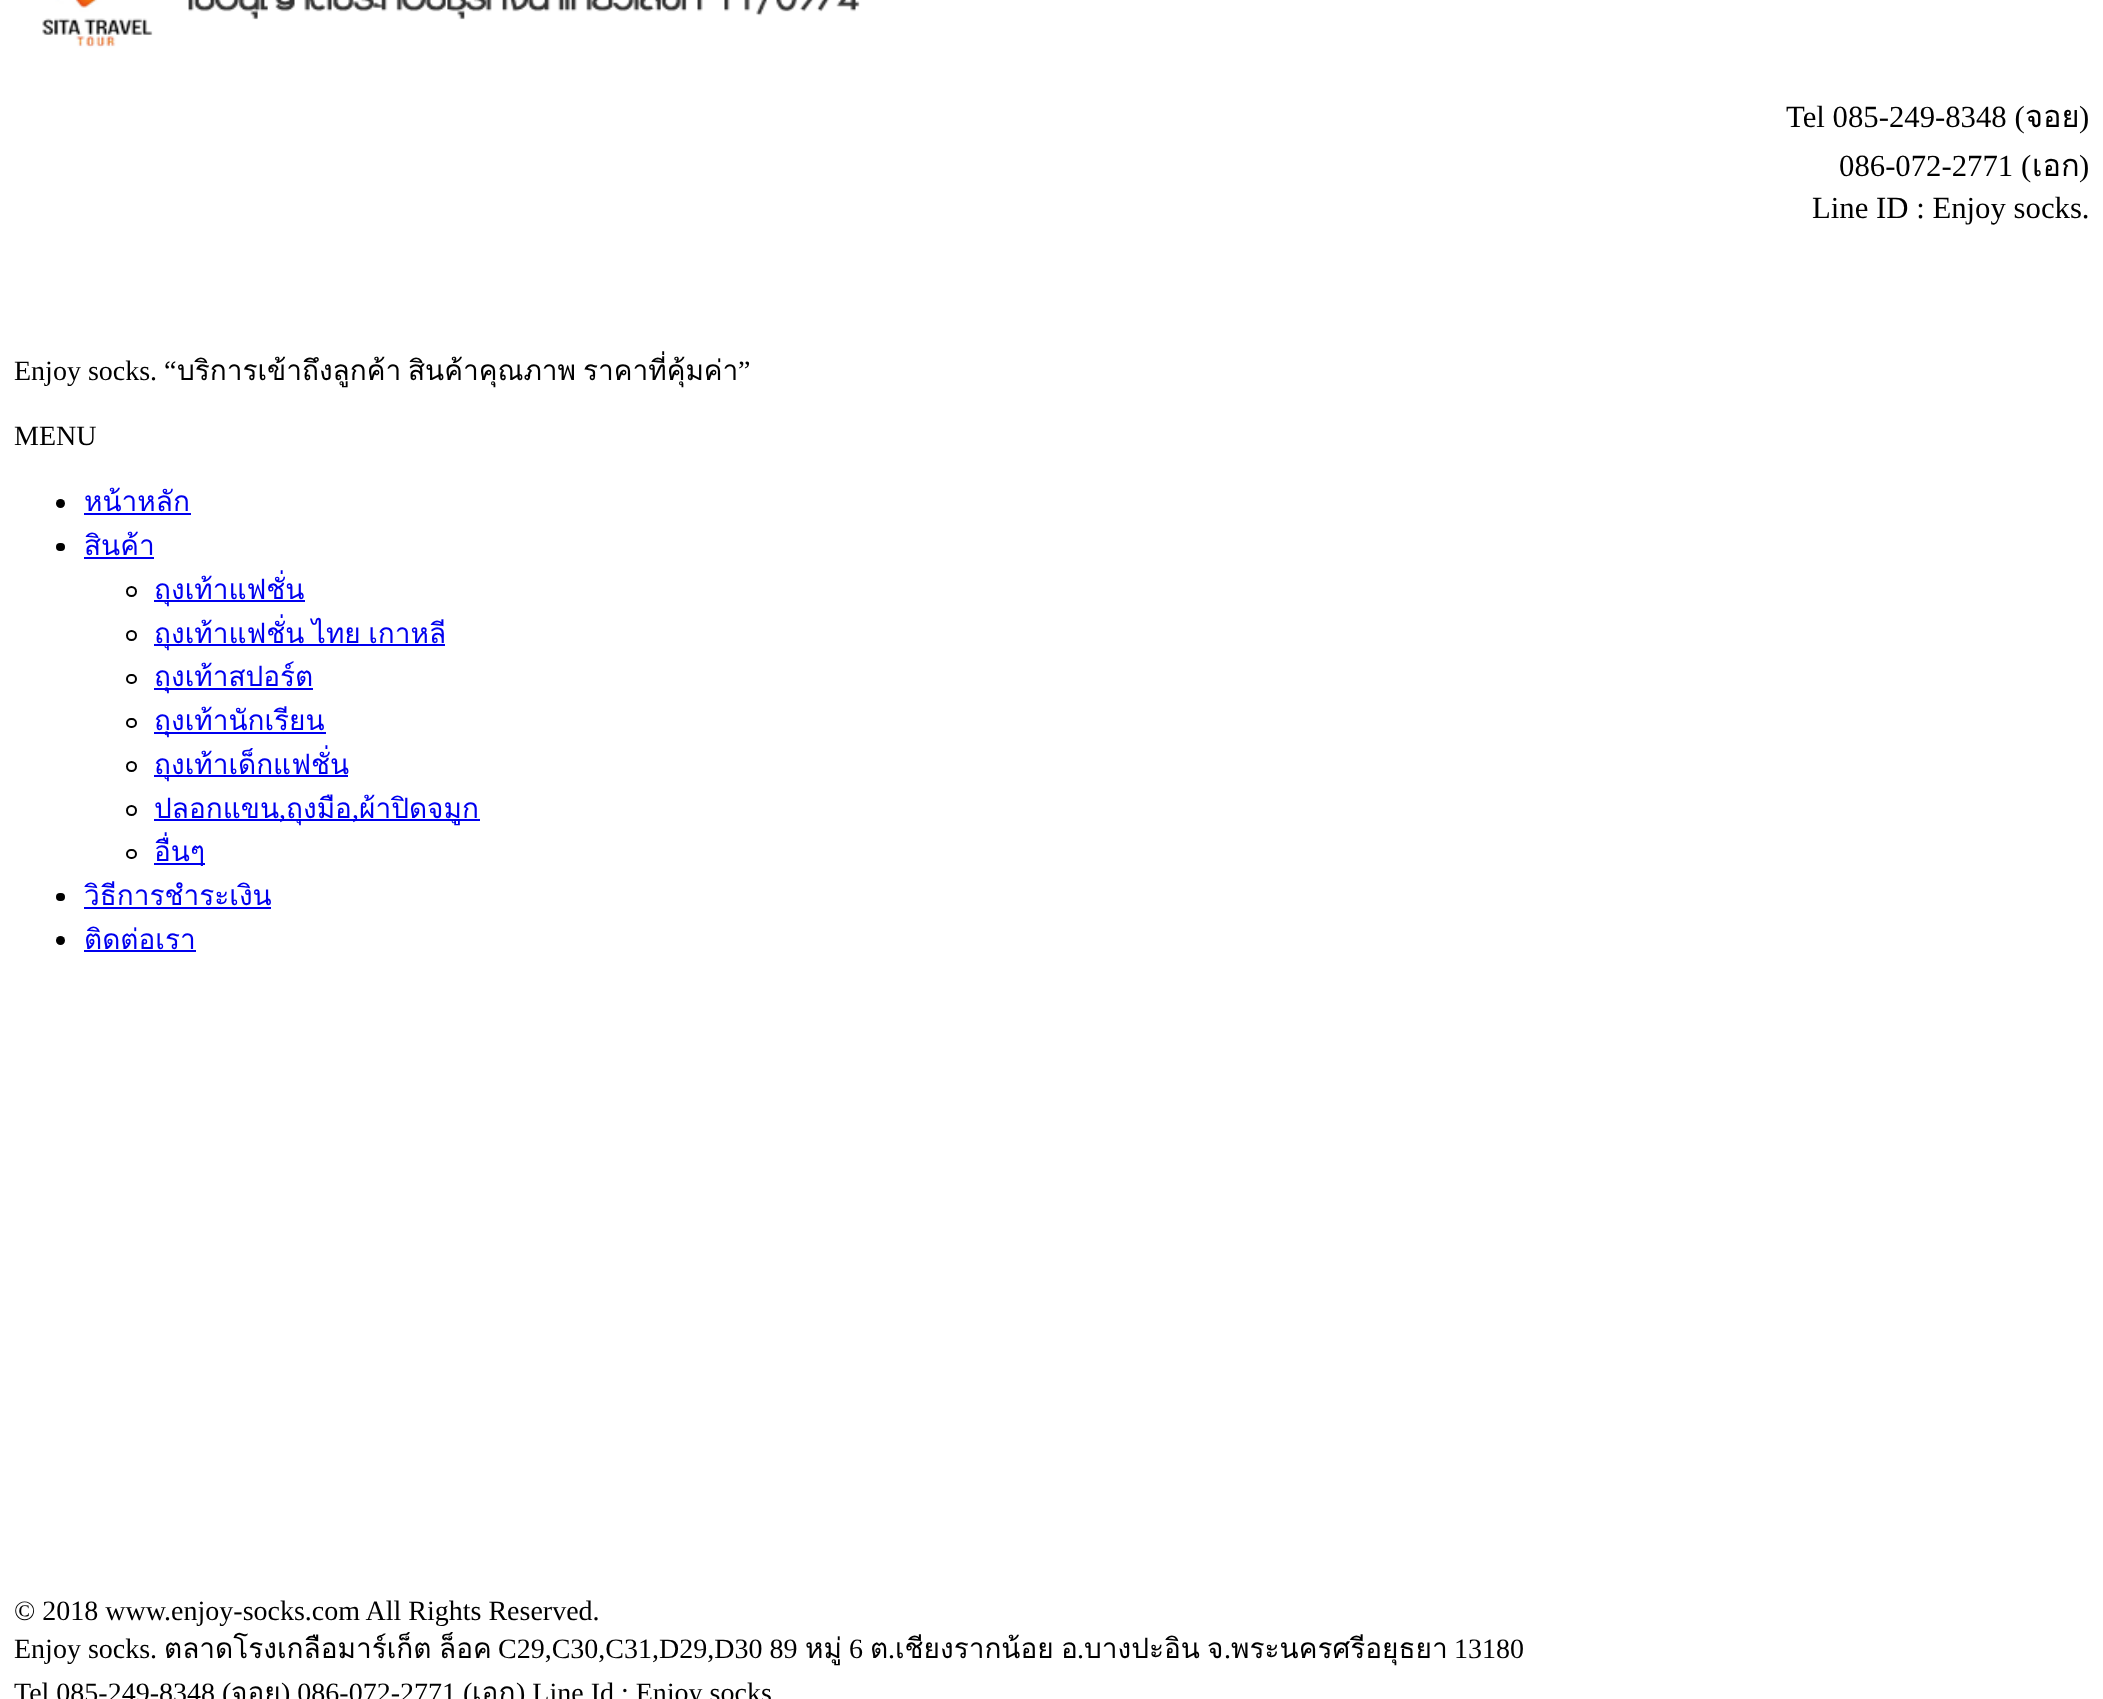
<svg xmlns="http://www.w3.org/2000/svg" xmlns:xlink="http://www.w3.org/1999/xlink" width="2103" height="1699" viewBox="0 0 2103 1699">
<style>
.cls-1{font:30.75px Liberation Serif;fill:#000000}
.cls-2{font:30.75px Loma;fill:#000000}
.cls-3{font:28px Liberation Serif;fill:#000000}
.cls-4{font:28px Loma;fill:#000000}
.cls-5{font:28px Loma;fill:#0000ee}
.cls-6{font:28px Liberation Serif;fill:#0000ee}
</style>
<rect width="100%" height="100%" fill="#ffffff"/>
<image xlink:href="image0.png" x="42" y="0" width="818" height="48"/>
<circle fill="#000000" cx="60.5" cy="503.5" r="4.5"/>
<rect fill="#0000ee" x="84" y="513" width="107" height="2"/>
<rect fill="#000000" x="56" y="543" width="9" height="8" rx="4"/>
<rect fill="#0000ee" x="84" y="557" width="70" height="2"/>
<circle fill="none" stroke="#000000" stroke-width="2" cx="131.5" cy="591.5" r="4.5"/>
<rect fill="#0000ee" x="154" y="600" width="151" height="2"/>
<circle fill="none" stroke="#000000" stroke-width="2" cx="131.5" cy="635.5" r="4.5"/>
<rect fill="#0000ee" x="154" y="644" width="291" height="2"/>
<rect fill="none" stroke="#000000" stroke-width="2" x="127" y="675" width="9" height="8" rx="4"/>
<rect fill="#0000ee" x="154" y="688" width="159" height="2"/>
<rect fill="none" stroke="#000000" stroke-width="2" x="127" y="719" width="9" height="8" rx="4"/>
<rect fill="#0000ee" x="154" y="732" width="172" height="2"/>
<circle fill="none" stroke="#000000" stroke-width="2" cx="131.5" cy="766.5" r="4.5"/>
<rect fill="#0000ee" x="154" y="775" width="194" height="2"/>
<circle fill="none" stroke="#000000" stroke-width="2" cx="131.5" cy="810.5" r="4.5"/>
<rect fill="#0000ee" x="154" y="819" width="326" height="2"/>
<rect fill="none" stroke="#000000" stroke-width="2" x="127" y="850" width="9" height="8" rx="4"/>
<rect fill="#0000ee" x="154" y="863" width="51" height="2"/>
<rect fill="#000000" x="56" y="893" width="9" height="8" rx="4"/>
<rect fill="#0000ee" x="84" y="907" width="187" height="2"/>
<circle fill="#000000" cx="60.5" cy="940.5" r="4.5"/>
<rect fill="#0000ee" x="84" y="950" width="112" height="2"/>
<text class="cls-1" x="1786" y="127">Tel 085-249-8348 (</text>
<text class="cls-2" x="2025" y="127">จอย</text>
<text class="cls-1" x="2079" y="127">)</text>
<text class="cls-1" x="1839" y="176">086-072-2771 (</text>
<text class="cls-2" x="2032" y="176">เอก</text>
<text class="cls-1" x="2079" y="176">)</text>
<text class="cls-1" x="1812" y="218">Line ID : Enjoy socks.</text>
<text class="cls-3" x="14" y="380">Enjoy socks. “</text>
<text class="cls-4" x="177" y="380">บริการเข้าถึงลูกค้า</text>
<text class="cls-4" x="408" y="380">สินค้าคุณภาพ</text>
<text class="cls-4" x="583" y="380">ราคาที่คุ้มค่า</text>
<text class="cls-3" x="738" y="380">”</text>
<text class="cls-3" x="14" y="445">MENU</text>
<text class="cls-5"><tspan x="84" y="511">หน้าหลัก</tspan><tspan x="84" y="555">สินค้า</tspan></text>
<text class="cls-5"><tspan x="154" y="599">ถุงเท้าแฟชั่น</tspan><tspan x="154" y="643" word-spacing="-2">ถุงเท้าแฟชั่น ไทย เกาหลี</tspan><tspan x="154" y="686">ถุงเท้าสปอร์ต</tspan><tspan x="154" y="730">ถุงเท้านักเรียน</tspan><tspan x="154" y="774">ถุงเท้าเด็กแฟชั่น</tspan><tspan x="154" y="818">ปลอกแขน</tspan></text>
<text class="cls-6" x="279" y="818">,</text>
<text class="cls-5" x="286" y="818">ถุงมือ</text>
<text class="cls-6" x="352" y="818">,</text>
<text class="cls-5" x="359" y="818">ผ้าปิดจมูก</text>
<text class="cls-5" x="154" y="861">อื่นๆ</text>
<text class="cls-5"><tspan x="84" y="905">วิธีการชำระเงิน</tspan><tspan x="84" y="949">ติดต่อเรา</tspan></text>
<text class="cls-3"><tspan x="14" y="1620">© 2018 www.enjoy-socks.com All Rights Reserved.</tspan><tspan x="14" y="1658">Enjoy socks.</tspan></text>
<text class="cls-4" x="164" y="1658">ตลาดโรงเกลือมาร์เก็ต</text>
<text class="cls-4" x="439" y="1658">ล็อค</text>
<text class="cls-3" x="498" y="1658">C29,C30,C31,D29,D30 89</text>
<text class="cls-4" x="805" y="1658">หมู่</text>
<text class="cls-3" x="849" y="1658">6</text>
<text class="cls-4" x="870" y="1658">ต</text>
<text class="cls-4" x="1061" y="1658">อ</text>
<text class="cls-4" x="1084" y="1658">บางปะอิน</text>
<text class="cls-4" x="1207" y="1658">จ</text>
<text class="cls-4" x="1231" y="1658">พระนครศรีอยุธยา</text>
<text class="cls-3" x="1454" y="1658">13180</text>
<text class="cls-3" x="888" y="1658">.</text>
<text class="cls-4" x="895" y="1658">เชียงรากน้อย</text>
<text class="cls-3" x="1077" y="1658">.</text>
<text class="cls-3" x="1224" y="1658">.</text>
<text class="cls-3" x="14" y="1702">Tel 085-249-8348 (</text>
<text class="cls-4" x="231" y="1702">จอย</text>
<text class="cls-3" x="281" y="1702">) 086-072-2771 (</text>
<text class="cls-4" x="472" y="1702">เอก</text>
<text class="cls-3" x="516" y="1702">) Line Id : Enjoy socks</text>
</svg>
